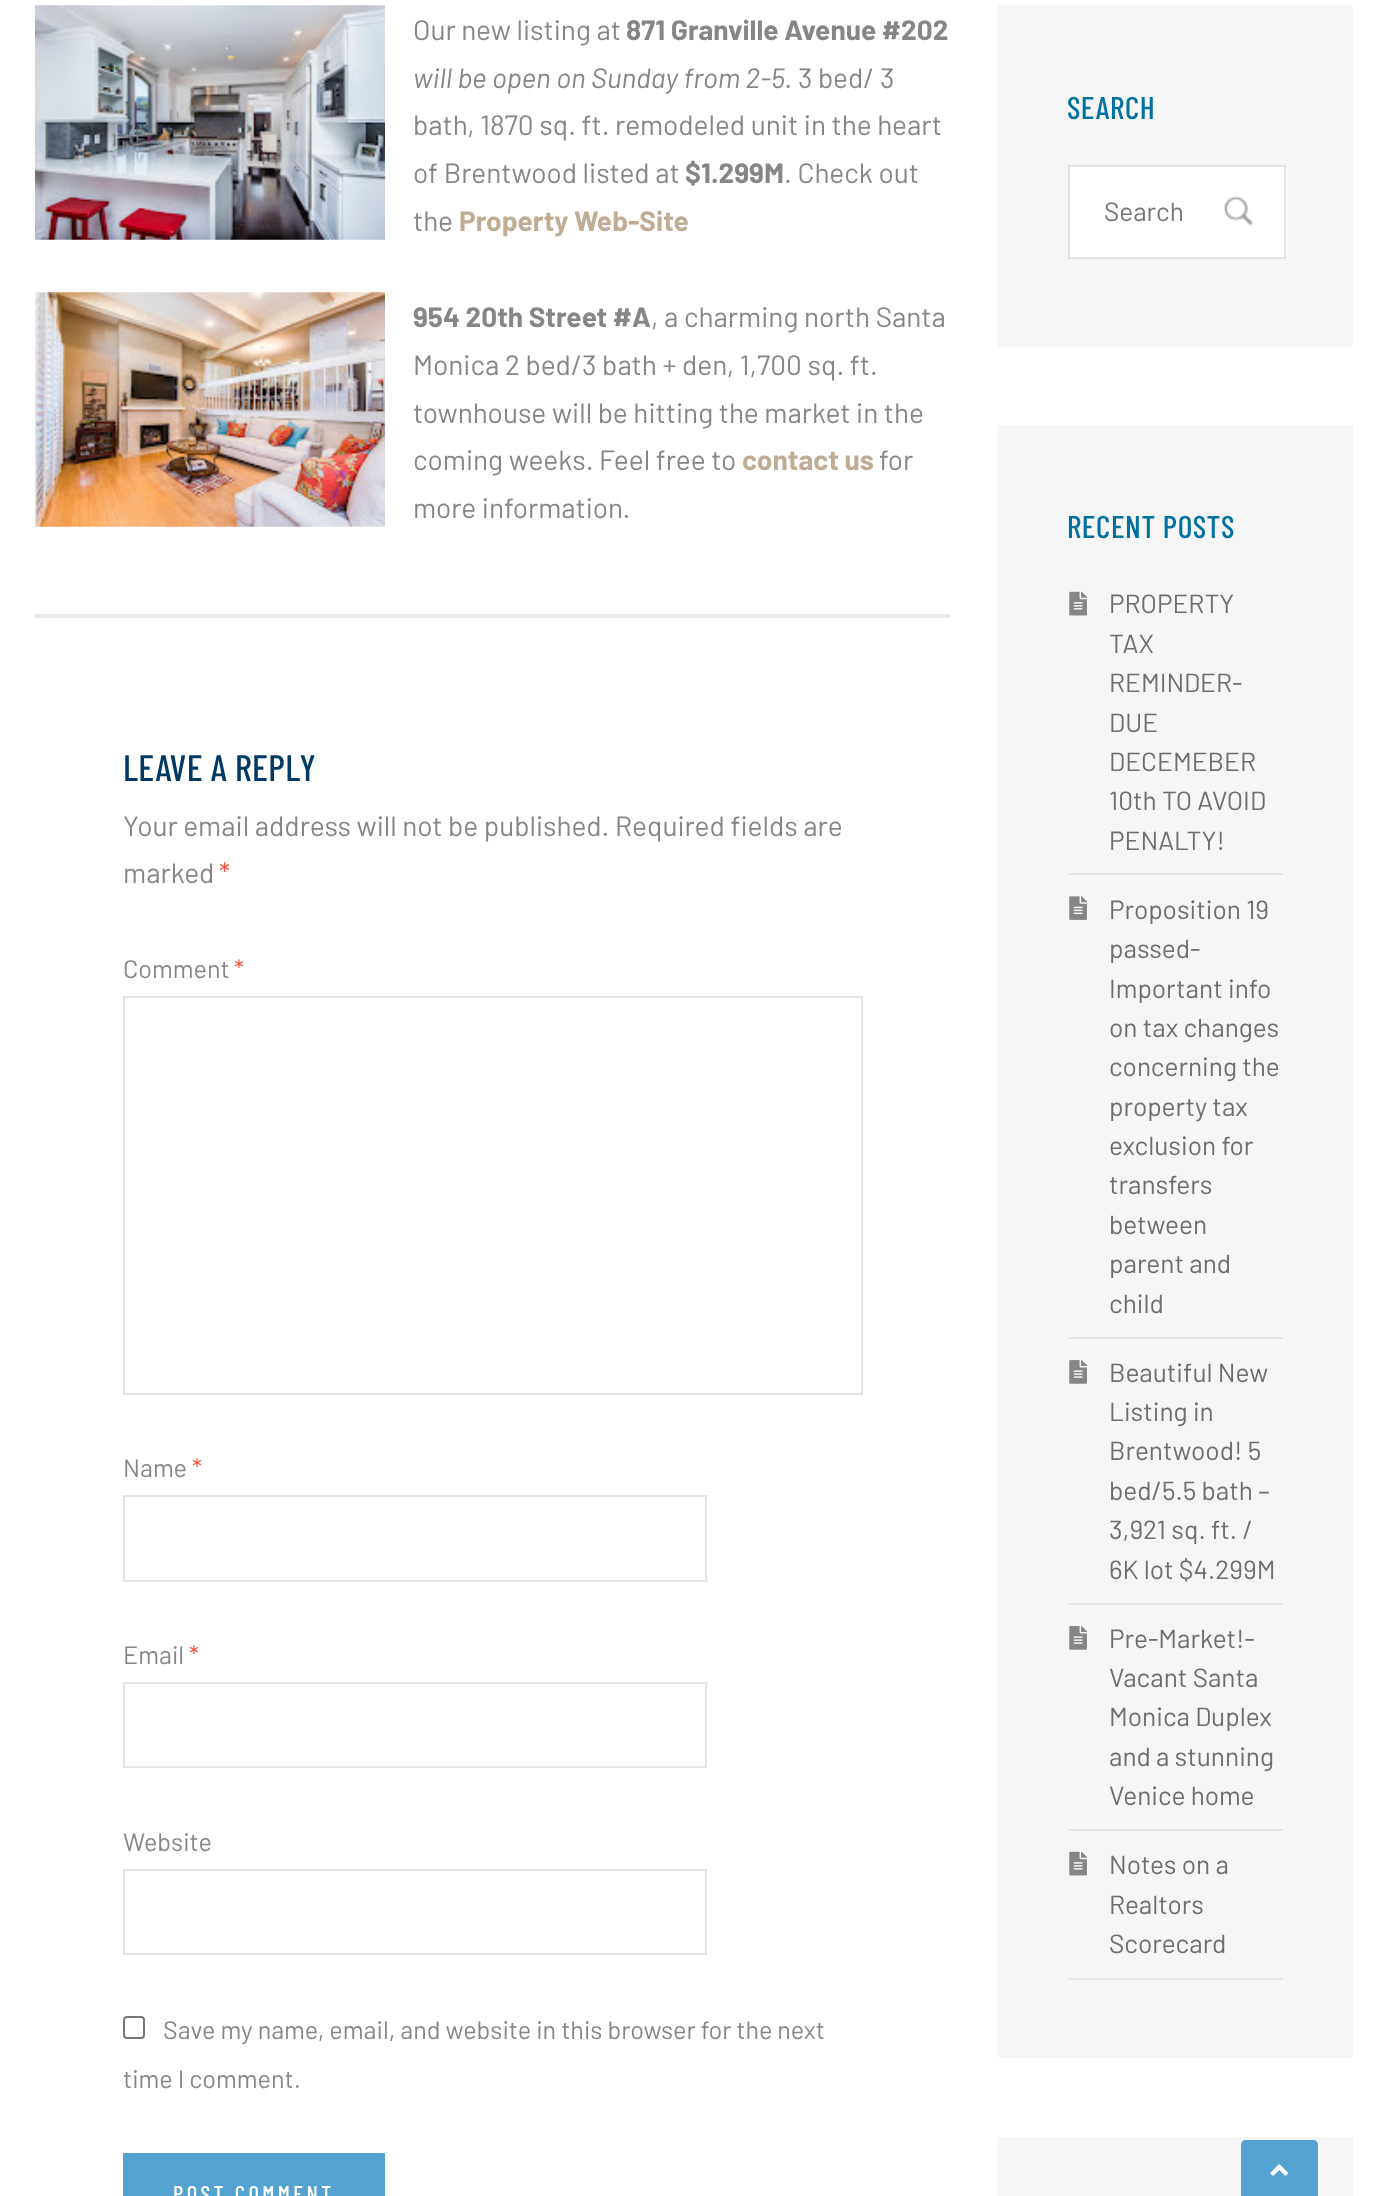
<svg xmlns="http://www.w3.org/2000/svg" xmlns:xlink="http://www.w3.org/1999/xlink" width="1387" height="2196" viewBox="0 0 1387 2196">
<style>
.cls-1{font:28px Barlow;fill:#868686}
.cls-2{font:bold 28px Barlow;fill:#868686}
.cls-3{font:italic 28px Barlow;fill:#868686}
.cls-4{font:bold 28px Barlow;fill:#c0ac95}
.cls-5{font:500 36.75px Barlow Condensed;letter-spacing:0.4px;fill:#003a64}
.cls-6{font:28px Barlow;fill:#fa4e3c}
.cls-7{font:25.2px Barlow;fill:#868686}
.cls-8{font:25.2px Barlow;fill:#fa4e3c}
.cls-9{font:500 22.75px Barlow Condensed;letter-spacing:3.4px;fill:#ffffff}
.cls-10{font:500 31.5px Barlow Condensed;letter-spacing:0.6px;fill:#0071a1}
.cls-11{font:26.25px Barlow;fill:#757575}
.cls-12{font:26.25px Barlow;fill:#706d6b}
</style>
<rect width="100%" height="100%" fill="#ffffff"/>
<image xlink:href="image0.png" x="35" y="5" width="350" height="235"/>
<image xlink:href="image1.png" x="35" y="292" width="350" height="235"/>
<rect fill="#e9e9e9" x="35" y="614" width="915" height="4"/>
<rect fill="none" stroke="#e4e4e4" stroke-width="2" x="124" y="997" width="738" height="397"/>
<rect fill="none" stroke="#e4e4e4" stroke-width="2" x="124" y="1496" width="582" height="85"/>
<rect fill="none" stroke="#e4e4e4" stroke-width="2" x="124" y="1683" width="582" height="84"/>
<rect fill="none" stroke="#e4e4e4" stroke-width="2" x="124" y="1870" width="582" height="84"/>
<rect fill="none" stroke="#767676" stroke-width="2" x="124" y="2017" width="20" height="21" rx="3"/>
<rect fill="#54a2d2" x="123" y="2153" width="262" height="43"/>
<rect fill="#f6f6f6" x="998" y="5" width="355" height="342"/>
<rect fill="#ffffff" x="1070" y="167" width="214" height="90"/>
<image xlink:href="image2.png" x="1223" y="195" width="31" height="31"/>
<rect fill="none" stroke="#e4e4e4" stroke-width="2" x="1069" y="166" width="216" height="92"/>
<rect fill="#f6f6f6" x="998" y="425" width="355" height="1633"/>
<rect fill="#e5e5e5" x="1068" y="873" width="215" height="2"/>
<image xlink:href="image3.png" x="1069" y="591" width="18" height="25"/>
<rect fill="#e5e5e5" x="1068" y="1337" width="215" height="2"/>
<image xlink:href="image4.png" x="1069" y="896" width="18" height="24"/>
<rect fill="#e5e5e5" x="1068" y="1603" width="215" height="2"/>
<image xlink:href="image5.png" x="1069" y="1360" width="18" height="24"/>
<rect fill="#e5e5e5" x="1068" y="1829" width="215" height="2"/>
<image xlink:href="image5.png" x="1069" y="1626" width="18" height="24"/>
<rect fill="#e5e5e5" x="1068" y="1978" width="215" height="2"/>
<image xlink:href="image3.png" x="1069" y="1851" width="18" height="25"/>
<rect fill="#f6f6f6" x="998" y="2137" width="355" height="59"/>
<path fill="#54a2d2" d="M1246 2140H1313C1316 2140 1318 2142 1318 2145V2196H1241V2145C1241 2142 1243 2140 1246 2140Z"/>
<image xlink:href="image6.png" x="1270" y="2164" width="18" height="12"/>
<text class="cls-1" x="413" y="40">Our new listing at</text>
<text class="cls-2" x="626" y="40">871 Granville Avenue #202</text>
<text class="cls-3" x="413" y="88">will be open on Sunday from 2-5.</text>
<text class="cls-1" x="798" y="88">3 bed/ 3</text>
<text class="cls-1"><tspan x="413" y="135">bath, 1870 sq. ft. remodeled unit in the heart</tspan><tspan x="413" y="183">of Brentwood listed at</tspan></text>
<text class="cls-2" x="685" y="183">$1.299M</text>
<text class="cls-1" x="784" y="183">. Check out</text>
<text class="cls-1" x="413" y="231">the</text>
<text class="cls-4" x="459" y="231">Property Web-Site</text>
<text class="cls-2" x="413" y="327">954 20th Street #A</text>
<text class="cls-1" x="651" y="327">, a charming north Santa</text>
<text class="cls-1"><tspan x="413" y="375">Monica 2 bed/3 bath + den, 1,700 sq. ft.</tspan><tspan x="413" y="423">townhouse will be hitting the market in the</tspan><tspan x="413" y="470">coming weeks. Feel free to</tspan></text>
<text class="cls-4" x="742" y="470">contact us</text>
<text class="cls-1" x="879" y="470">for</text>
<text class="cls-1" x="413" y="518">more information.</text>
<text class="cls-5" x="123" y="781">LEAVE A REPLY</text>
<text class="cls-1"><tspan x="123" y="836">Your email address will not be published. Required fields are</tspan><tspan x="123" y="883">marked</tspan></text>
<text class="cls-6" x="219" y="883">*</text>
<text class="cls-7" x="123" y="978">Comment</text>
<text class="cls-8" x="234" y="978">*</text>
<text class="cls-7" x="123" y="1477">Name</text>
<text class="cls-8" x="192" y="1477">*</text>
<text class="cls-7" x="123" y="1664">Email</text>
<text class="cls-8" x="189" y="1664">*</text>
<text class="cls-7" x="123" y="1851">Website</text>
<text class="cls-7" x="163" y="2039">Save my name, email, and website in this browser for the next</text>
<text class="cls-7" x="123" y="2088">time I comment.</text>
<text class="cls-9" x="173" y="2202">POST COMMENT</text>
<text class="cls-10" x="1067" y="119">SEARCH</text>
<text class="cls-11" x="1104" y="221">Search</text>
<text class="cls-10" x="1067" y="538">RECENT POSTS</text>
<text class="cls-12"><tspan x="1109" y="613">PROPERTY</tspan><tspan x="1109" y="653">TAX</tspan><tspan x="1109" y="692">REMINDER-</tspan><tspan x="1109" y="732">DUE</tspan><tspan x="1109" y="771">DECEMEBER</tspan><tspan x="1109" y="810">10th TO AVOID</tspan><tspan x="1109" y="850">PENALTY!</tspan></text>
<text class="cls-12"><tspan x="1109" y="919">Proposition 19</tspan><tspan x="1109" y="958">passed-</tspan><tspan x="1109" y="998">Important info</tspan><tspan x="1109" y="1037">on tax changes</tspan><tspan x="1109" y="1076">concerning the</tspan><tspan x="1109" y="1116">property tax</tspan><tspan x="1109" y="1155">exclusion for</tspan><tspan x="1109" y="1194">transfers</tspan><tspan x="1109" y="1234">between</tspan><tspan x="1109" y="1273">parent and</tspan><tspan x="1109" y="1313">child</tspan></text>
<text class="cls-12"><tspan x="1109" y="1382">Beautiful New</tspan><tspan x="1109" y="1421">Listing in</tspan><tspan x="1109" y="1460">Brentwood! 5</tspan><tspan x="1109" y="1500">bed/5.5 bath –</tspan><tspan x="1109" y="1539">3,921 sq. ft. /</tspan><tspan x="1109" y="1579">6K lot $4.299M</tspan></text>
<text class="cls-12"><tspan x="1109" y="1648">Pre-Market!-</tspan><tspan x="1109" y="1687">Vacant Santa</tspan><tspan x="1109" y="1726">Monica Duplex</tspan><tspan x="1109" y="1766">and a stunning</tspan><tspan x="1109" y="1805">Venice home</tspan></text>
<text class="cls-12"><tspan x="1109" y="1874">Notes on a</tspan><tspan x="1109" y="1914">Realtors</tspan><tspan x="1109" y="1953">Scorecard</tspan></text>
</svg>
